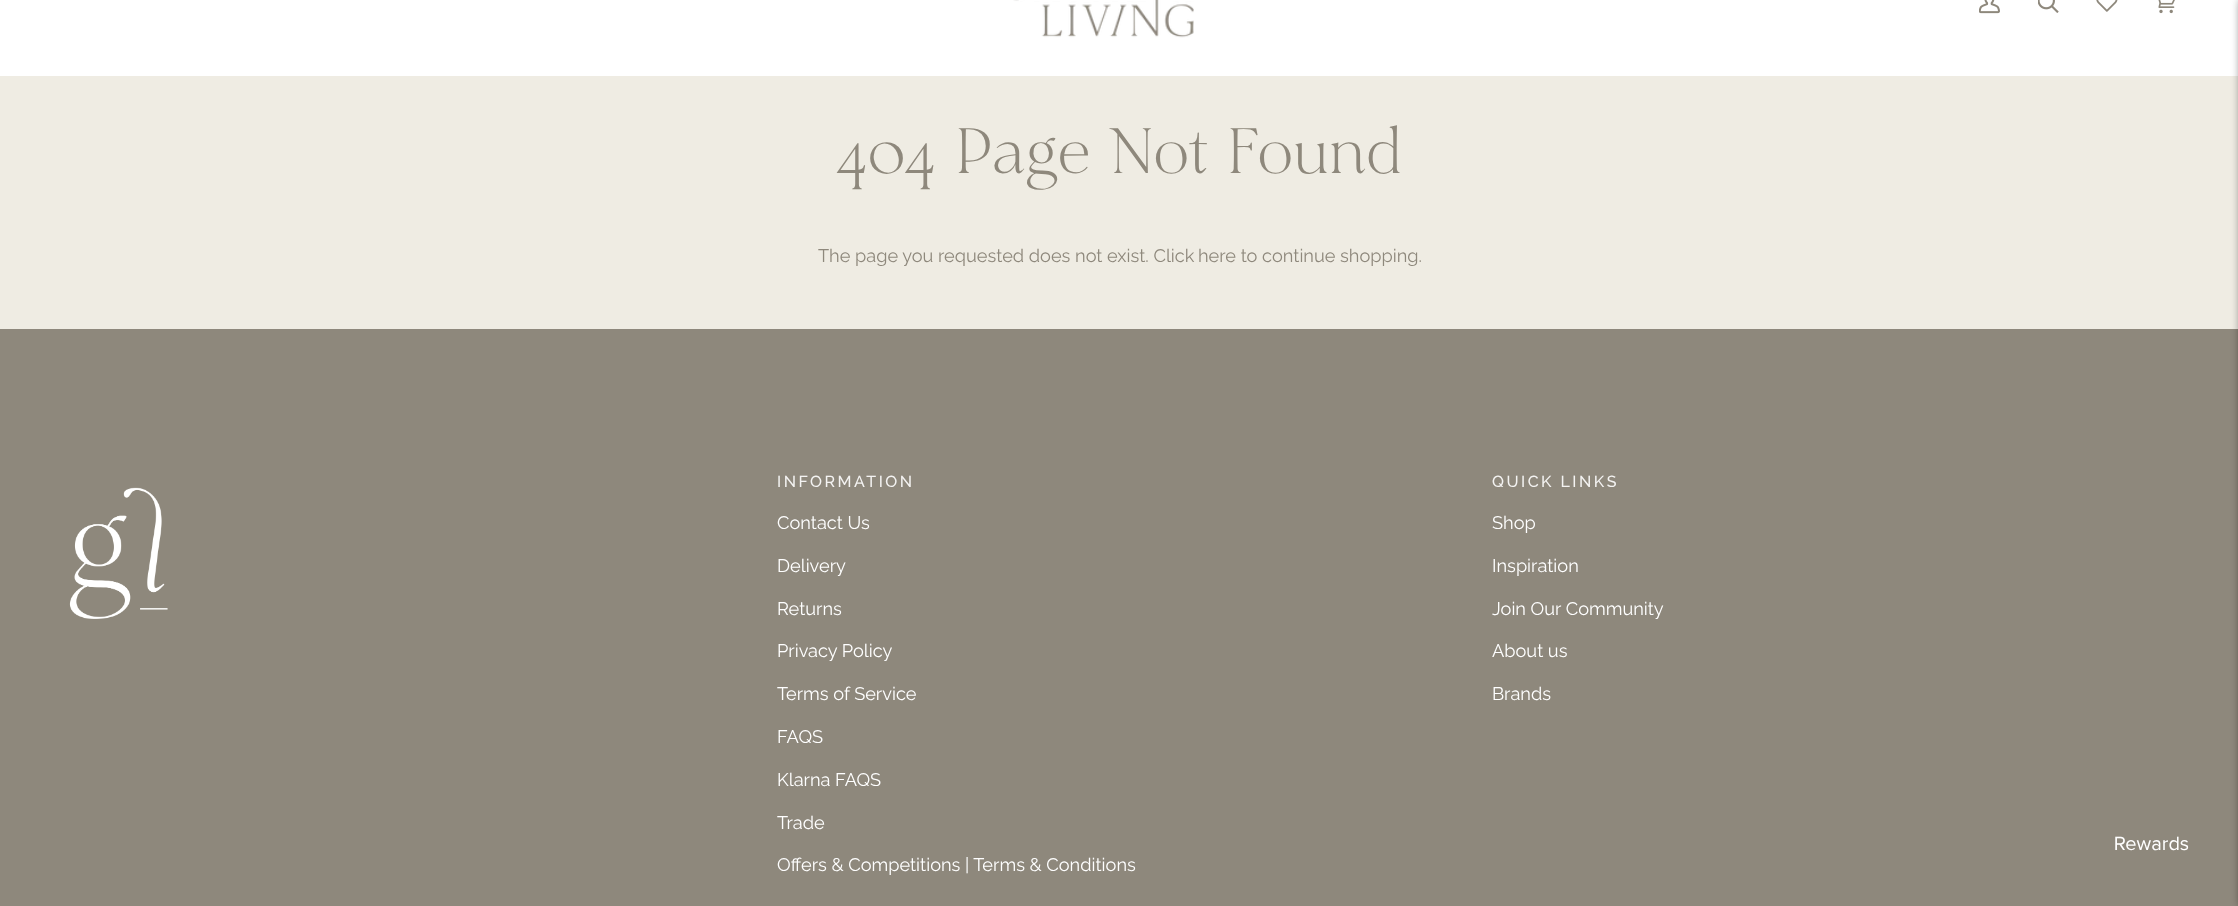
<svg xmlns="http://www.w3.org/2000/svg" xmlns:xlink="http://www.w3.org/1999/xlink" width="2238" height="906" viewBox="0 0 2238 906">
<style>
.cls-1{font:59.75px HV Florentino;fill:#8e887c}
.cls-2{font:18.2px Raleway;fill:#8e887c}
.cls-3{font:500 16px Raleway;letter-spacing:2.5px;fill:#f4f3f2}
.cls-4{font:18.2px Raleway;fill:#ffffff}
</style>
<rect width="100%" height="100%" fill="#ffffff"/>
<image xlink:href="image0.png" x="1013" y="0" width="181" height="38"/>
<image xlink:href="image1.png" x="1979" y="0" width="21" height="14"/>
<image xlink:href="image2.png" x="2038" y="0" width="21" height="13"/>
<image xlink:href="image3.png" x="2096" y="0" width="22" height="12"/>
<image xlink:href="image4.png" x="2158" y="0" width="17" height="14"/>
<rect fill="#efece3" x="0" y="76" width="2238" height="253"/>
<rect fill="#8e887c" x="0" y="329" width="2238" height="577"/>
<rect fill="#000000" fill-opacity="0.5" filter="blur(4.5px)" x="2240" y="0" width="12" height="906"/>
<image xlink:href="image5.png" x="69" y="487" width="99" height="132"/>
<image xlink:href="image6.png" x="2115" y="836" width="74" height="15"/>
<text class="cls-1" x="837" y="173">404 Page Not Found</text>
<text class="cls-2" x="818" y="262">The page you requested does not exist. Click</text>
<text class="cls-2" x="1198" y="262">here to continue shopping.</text>
<text class="cls-3" x="777" y="487">INFORMATION</text>
<text class="cls-4" x="777" y="529">Contact Us</text>
<text class="cls-4" x="777" y="572">Delivery</text>
<text class="cls-4" x="777" y="615">Returns</text>
<text class="cls-4" x="777" y="657">Privacy Policy</text>
<text class="cls-4" x="777" y="700">Terms of Service</text>
<text class="cls-4" x="777" y="743">FAQS</text>
<text class="cls-4" x="777" y="786">Klarna FAQS</text>
<text class="cls-4" x="777" y="829">Trade</text>
<text class="cls-4" x="777" y="871">Offers &amp; Competitions | Terms &amp; Conditions</text>
<text class="cls-3" x="1492" y="487">QUICK LINKS</text>
<text class="cls-4" x="1492" y="529">Shop</text>
<text class="cls-4" x="1492" y="572">Inspiration</text>
<text class="cls-4" x="1492" y="615">Join Our Community</text>
<text class="cls-4" x="1492" y="657">About us</text>
<text class="cls-4" x="1492" y="700">Brands</text>
</svg>
